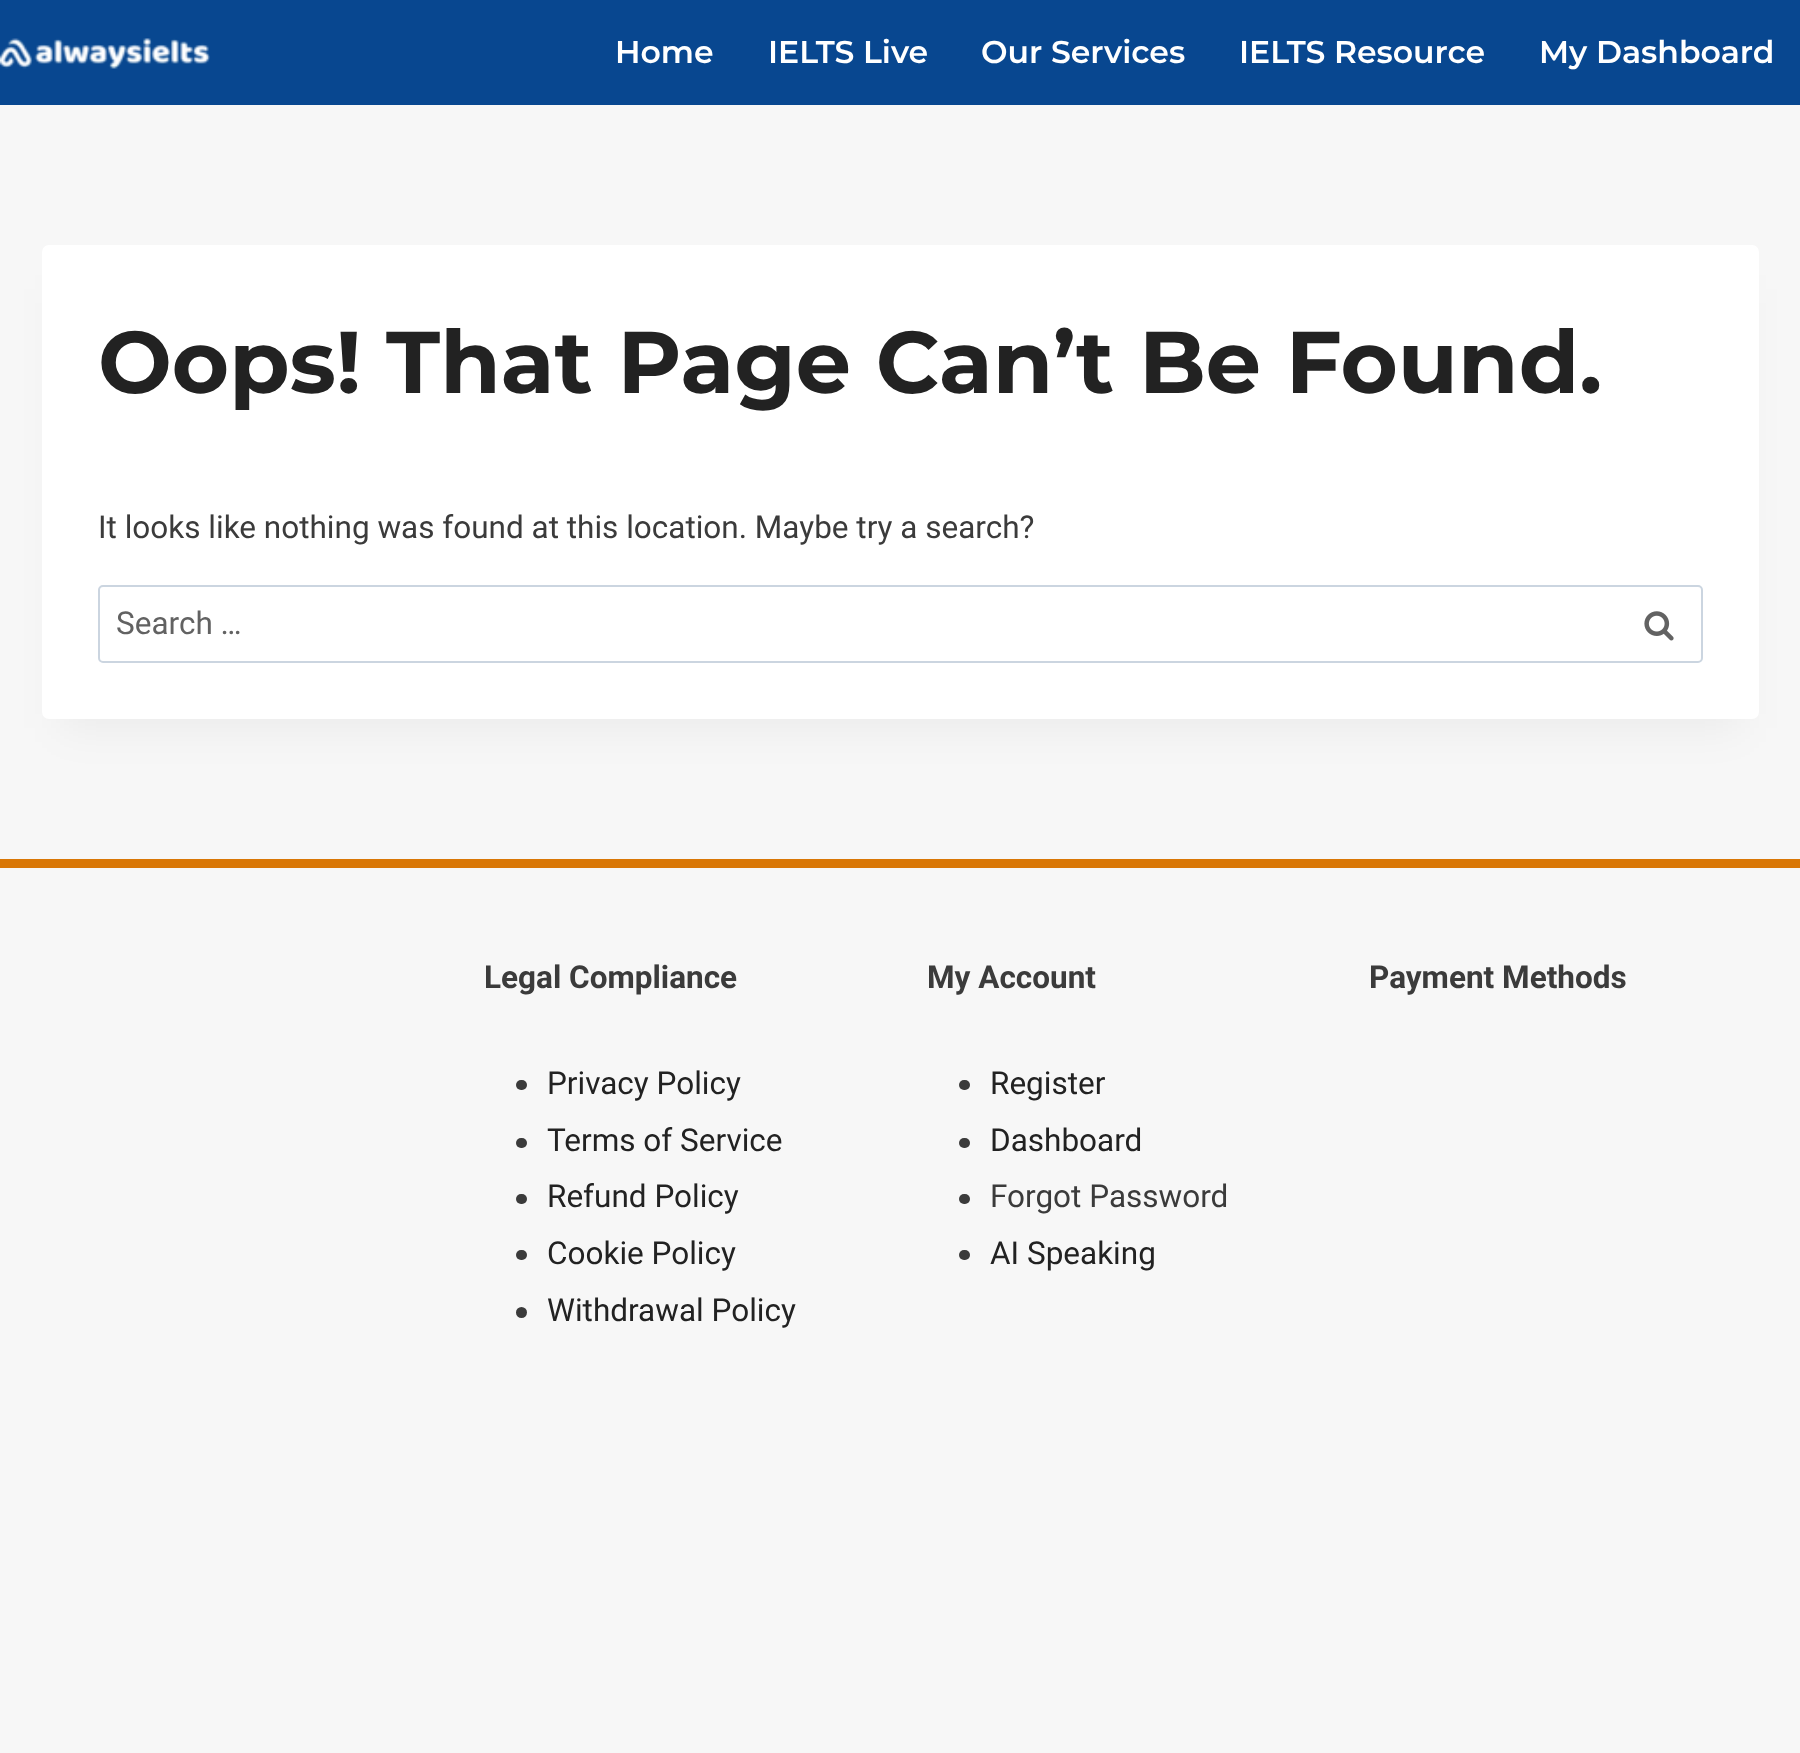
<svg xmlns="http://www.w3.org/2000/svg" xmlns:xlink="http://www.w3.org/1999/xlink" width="1800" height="1753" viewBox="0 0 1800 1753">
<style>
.cls-1{font:600 31.5px Montserrat;fill:#ffffff}
.cls-2{font:bold 87.5px Montserrat;fill:#222222}
.cls-3{font:31.5px Roboto;fill:#3b3b3b}
.cls-4{font:31.5px Roboto;fill:#626262}
.cls-5{font:bold 31.5px Roboto;fill:#3b3b3b}
.cls-6{font:31.5px Roboto;fill:#222222}
</style>
<rect width="100%" height="100%" fill="#f7f7f7"/>
<rect fill="#084790" x="0" y="0" width="1800" height="105"/>
<image xlink:href="image0.png" x="0" y="38" width="210" height="31"/>
<rect fill="#000000" fill-opacity="0.05" filter="blur(22px)" x="60" y="289" width="1681" height="439"/>
<rect fill="#ffffff" x="42" y="245" width="1717" height="474" rx="7"/>
<rect fill="none" stroke="#cbd5e0" stroke-width="2" x="99" y="586" width="1603" height="76" rx="4"/>
<image xlink:href="image1.png" x="1644" y="611" width="30" height="30"/>
<rect fill="#d97706" x="0" y="859" width="1800" height="9"/>
<rect fill="#3b3b3b" x="516" y="1080" width="11" height="10" rx="5"/>
<rect fill="#3b3b3b" x="516" y="1138" width="11" height="10" rx="5"/>
<rect fill="#3b3b3b" x="516" y="1194" width="11" height="10" rx="5"/>
<rect fill="#3b3b3b" x="516" y="1250" width="11" height="10" rx="5"/>
<circle fill="#3b3b3b" cx="521.5" cy="1312.5" r="5.5"/>
<rect fill="#3b3b3b" x="959" y="1080" width="11" height="10" rx="5"/>
<rect fill="#3b3b3b" x="959" y="1138" width="11" height="10" rx="5"/>
<rect fill="#3b3b3b" x="959" y="1194" width="11" height="10" rx="5"/>
<rect fill="#3b3b3b" x="959" y="1250" width="11" height="10" rx="5"/>
<text class="cls-1" x="615" y="63">Home</text>
<text class="cls-1" x="768" y="63">IELTS Live</text>
<text class="cls-1" x="981" y="63">Our Services</text>
<text class="cls-1" x="1239" y="63">IELTS Resource</text>
<text class="cls-1" x="1539" y="63">My Dashboard</text>
<text class="cls-2" x="98" y="393">Oops! That Page Can’t Be Found.</text>
<text class="cls-3" x="98" y="538">It looks like nothing was found at this location. Maybe try a search?</text>
<text class="cls-4" x="116" y="634">Search …</text>
<text class="cls-5" x="484" y="988">Legal Compliance</text>
<text class="cls-6"><tspan x="547" y="1094">Privacy Policy</tspan><tspan x="547" y="1151">Terms of Service</tspan><tspan x="547" y="1207">Refund Policy</tspan><tspan x="547" y="1264">Cookie Policy</tspan><tspan x="547" y="1321">Withdrawal Policy</tspan></text>
<text class="cls-5" x="927" y="988">My Account</text>
<text class="cls-6"><tspan x="990" y="1094">Register</tspan><tspan x="990" y="1151">Dashboard</tspan></text>
<text class="cls-3" x="990" y="1207">Forgot Password</text>
<text class="cls-6" x="990" y="1264">AI Speaking</text>
<text class="cls-5" x="1369" y="988">Payment Methods</text>
</svg>
